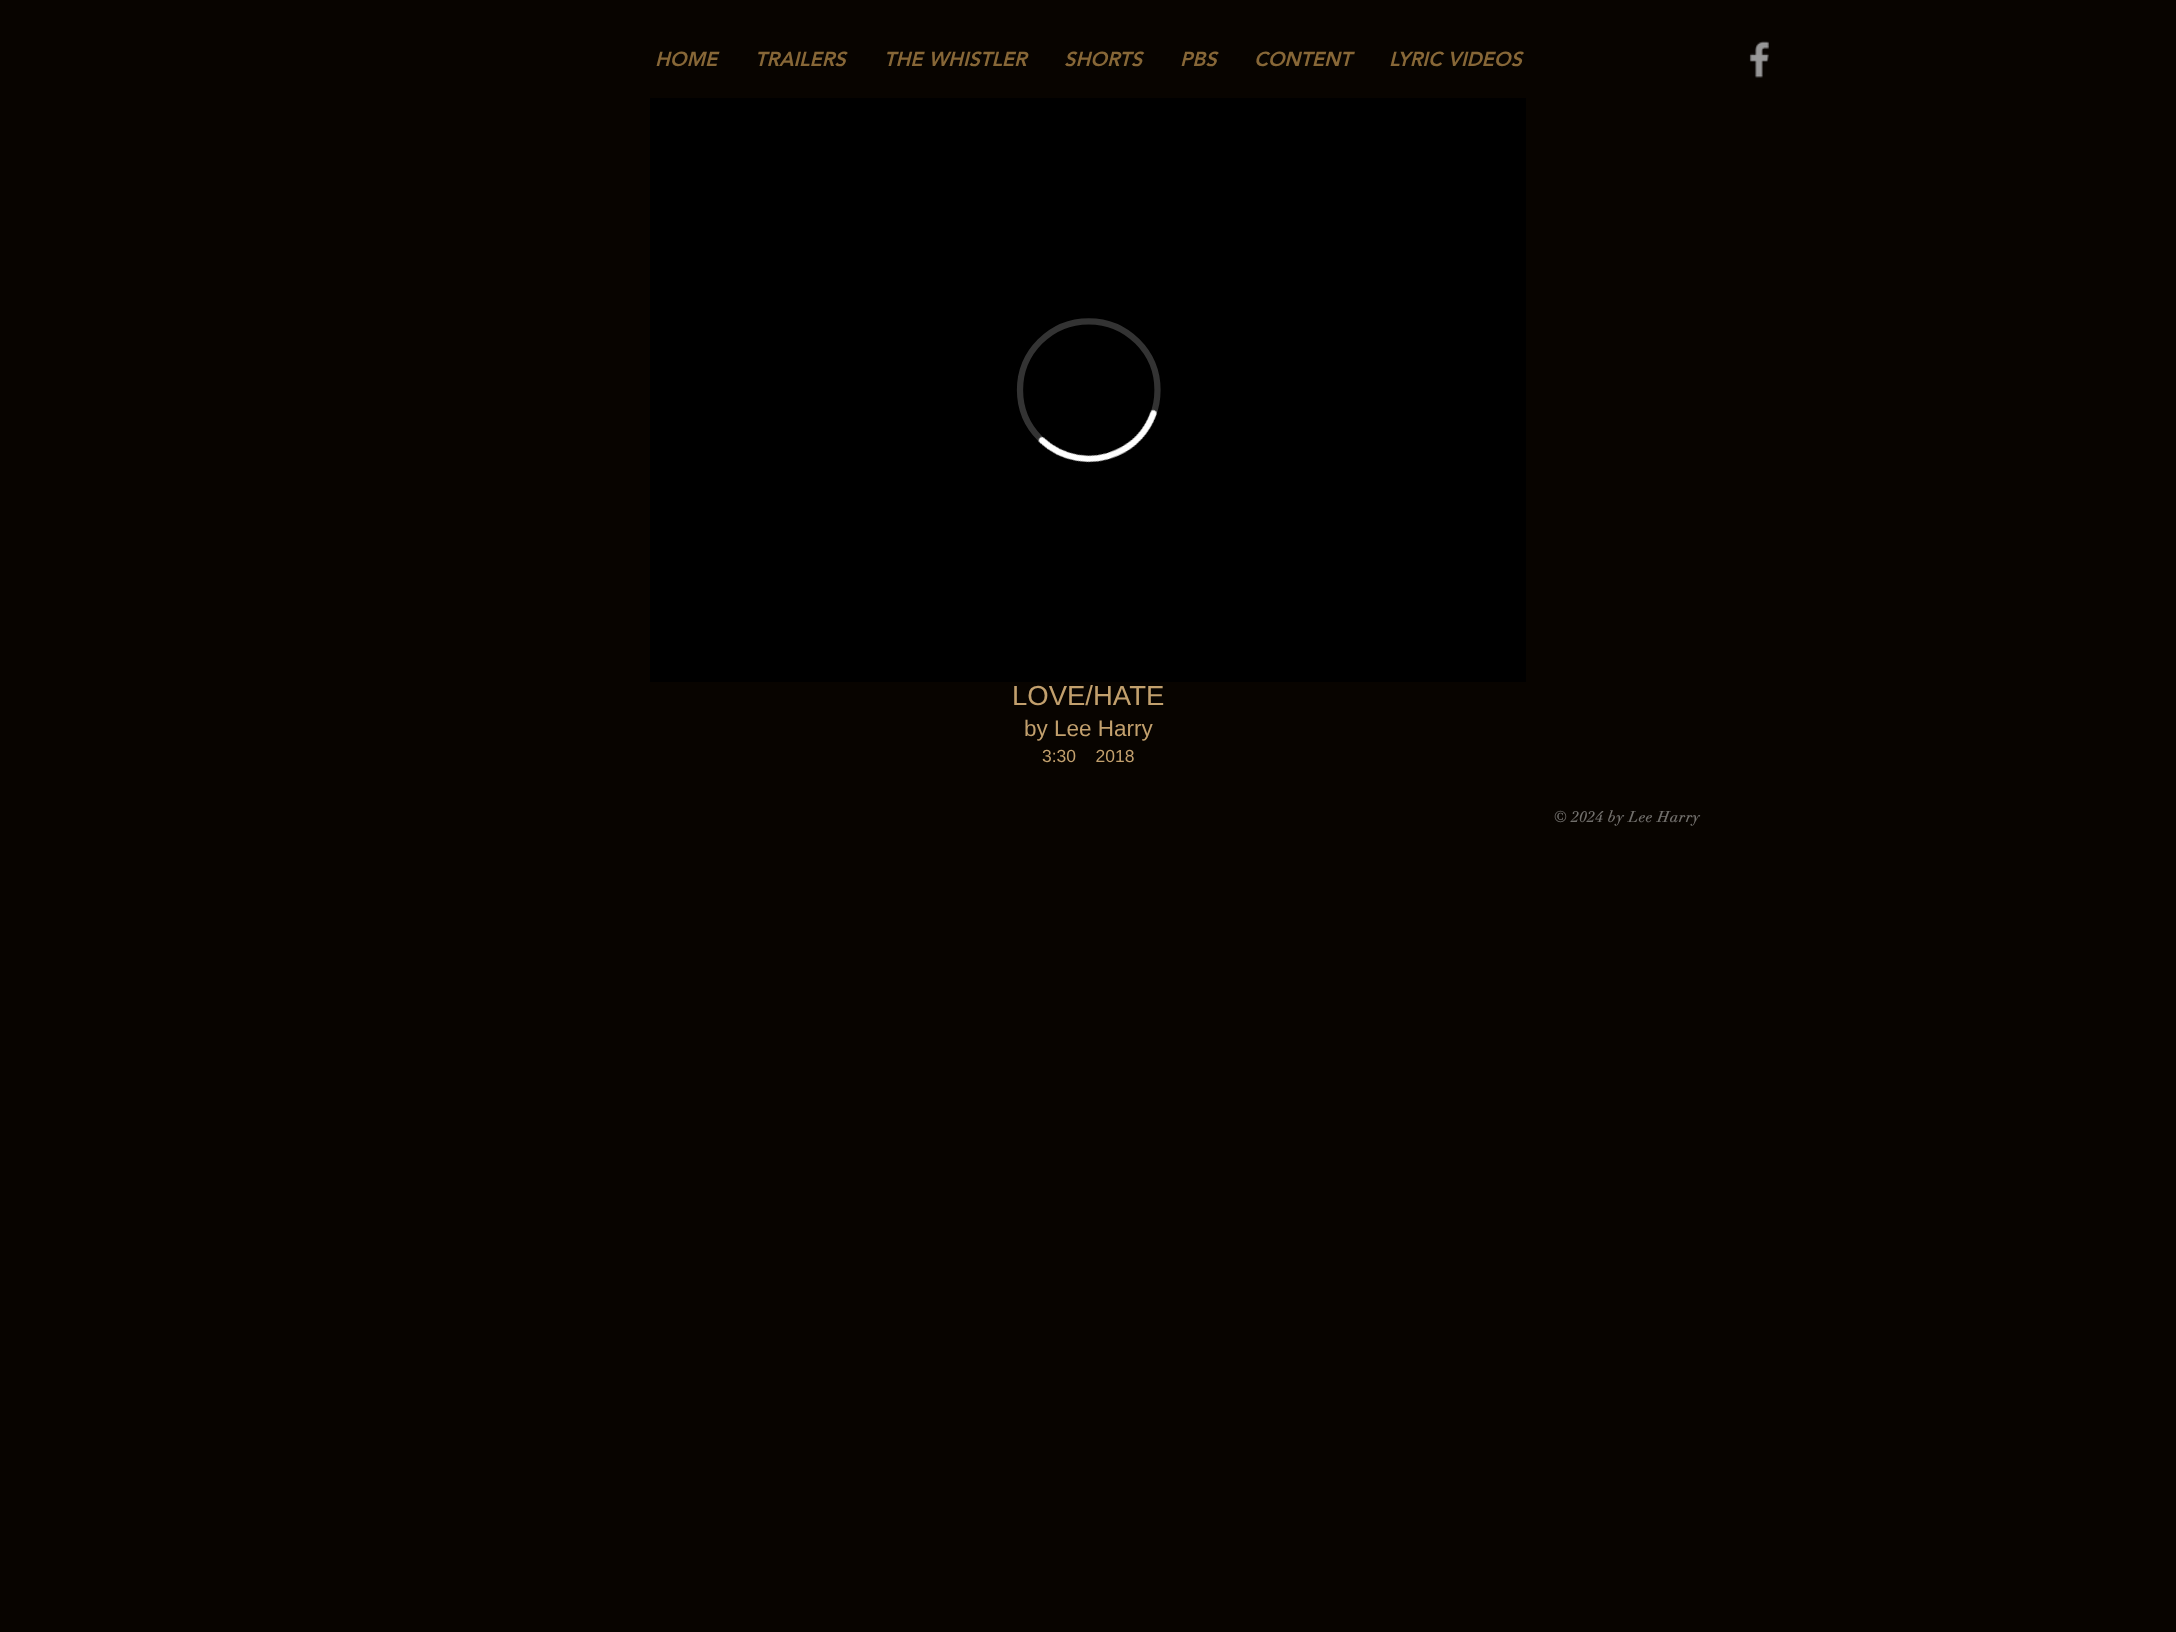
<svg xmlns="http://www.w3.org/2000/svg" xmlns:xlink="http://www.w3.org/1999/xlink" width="2176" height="1632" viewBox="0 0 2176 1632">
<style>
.cls-1{font:italic 900 20px 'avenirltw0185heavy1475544';fill:#876737}
.cls-2{font:27.5px Liberation Sans;fill:#c2a06d}
.cls-3{font:22.5px Liberation Sans;fill:#c2a06d}
.cls-4{font:17.5px Liberation Sans;fill:#c2a06d}
.cls-5{font:bold 15px didot;letter-spacing:0.75px;fill:#716f6b}
</style>
<rect width="100%" height="100%" fill="#080400"/>
<image xlink:href="image0.png" x="1749" y="41" width="20" height="37"/>
<image xlink:href="image1.png" x="650" y="98" width="876" height="584"/>
<text class="cls-1" x="655" y="66">HOME</text>
<text class="cls-1" x="755" y="66">TRAILERS</text>
<text class="cls-1" x="884" y="66">THE WHISTLER</text>
<text class="cls-1" x="1064" y="66">SHORTS</text>
<text class="cls-1" x="1180" y="66">PBS</text>
<text class="cls-1" x="1254" y="66">CONTENT</text>
<text class="cls-1" x="1389" y="66">LYRIC VIDEOS</text>
<text class="cls-2" x="1012" y="705">LOVE/HATE</text>
<text class="cls-3" x="1024" y="736">by Lee Harry</text>
<text class="cls-4" xml:space="preserve" x="1042" y="762">3:30    2018</text>
<text class="cls-5" x="1554" y="822">© 2024 by Lee Harry</text>
</svg>
